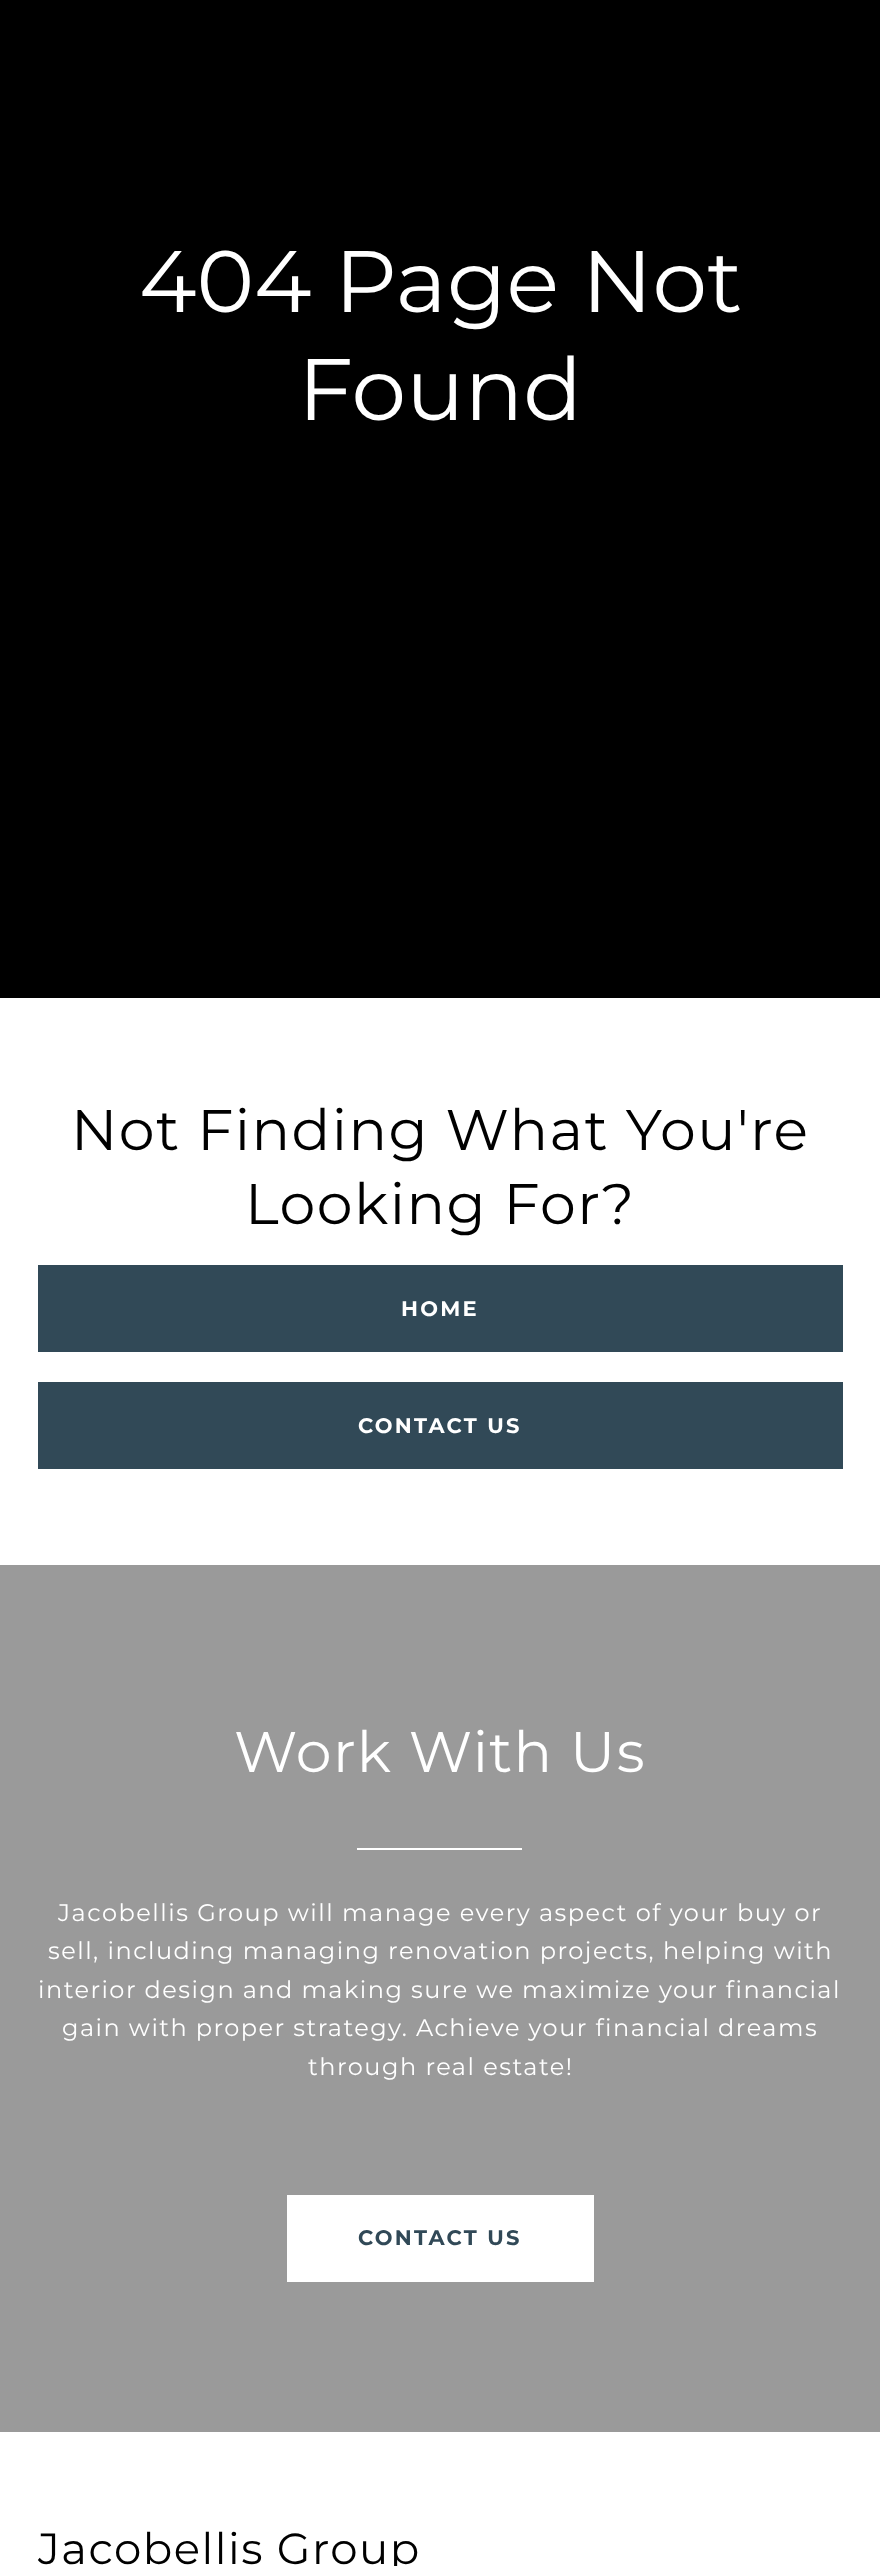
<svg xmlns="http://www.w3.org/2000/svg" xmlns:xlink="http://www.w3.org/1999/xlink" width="880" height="2566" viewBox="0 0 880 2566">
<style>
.cls-1{font:87px Montserrat;fill:#ffffff}
.cls-2{font:57px Montserrat;letter-spacing:1.5px;fill:#000000}
.cls-3{font:bold 21px Montserrat;letter-spacing:2.25px;fill:#ffffff}
.cls-4{font:57px Montserrat;letter-spacing:1.5px;fill:#ffffff}
.cls-5{font:24px Montserrat;letter-spacing:1.5px;fill:#ffffff}
.cls-6{font:bold 21px Montserrat;letter-spacing:2.25px;fill:#314957}
.cls-7{font:43.5px Montserrat;letter-spacing:1.5px;fill:#000000}
</style>
<rect width="100%" height="100%" fill="#ffffff"/>
<rect fill="#000000" x="0" y="0" width="880" height="998"/>
<rect fill="#314957" x="38" y="1265" width="805" height="87"/>
<rect fill="#314957" x="38" y="1382" width="805" height="87"/>
<rect fill="#9a9a9a" x="0" y="1565" width="880" height="867"/>
<rect fill="#ffffff" x="357" y="1848" width="165" height="2"/>
<rect fill="#ffffff" x="287" y="2195" width="307" height="87"/>
<text class="cls-1" x="139" y="312">404 Page Not</text>
<text class="cls-1" x="298" y="420">Found</text>
<text class="cls-2" x="71" y="1150">Not Finding What You're</text>
<text class="cls-2" x="245" y="1224">Looking For?</text>
<text class="cls-3" x="401" y="1316">HOME</text>
<text class="cls-3" x="358" y="1433">CONTACT US</text>
<text class="cls-4" x="234" y="1772">Work With Us</text>
<text class="cls-5" x="58" y="1921">Jacobellis Group will manage every aspect of your buy or</text>
<text class="cls-5" x="48" y="1959">sell, including managing renovation projects, helping with</text>
<text class="cls-5" x="38" y="1998" word-spacing="-0.25">interior design and making sure we maximize your financial</text>
<text class="cls-5" x="62" y="2036" word-spacing="-0.25">gain with proper strategy. Achieve your financial dreams</text>
<text class="cls-5" x="308" y="2075">through real estate!</text>
<text class="cls-6" x="358" y="2245">CONTACT US</text>
<text class="cls-7" x="38" y="2564">Jacobellis Group</text>
</svg>
